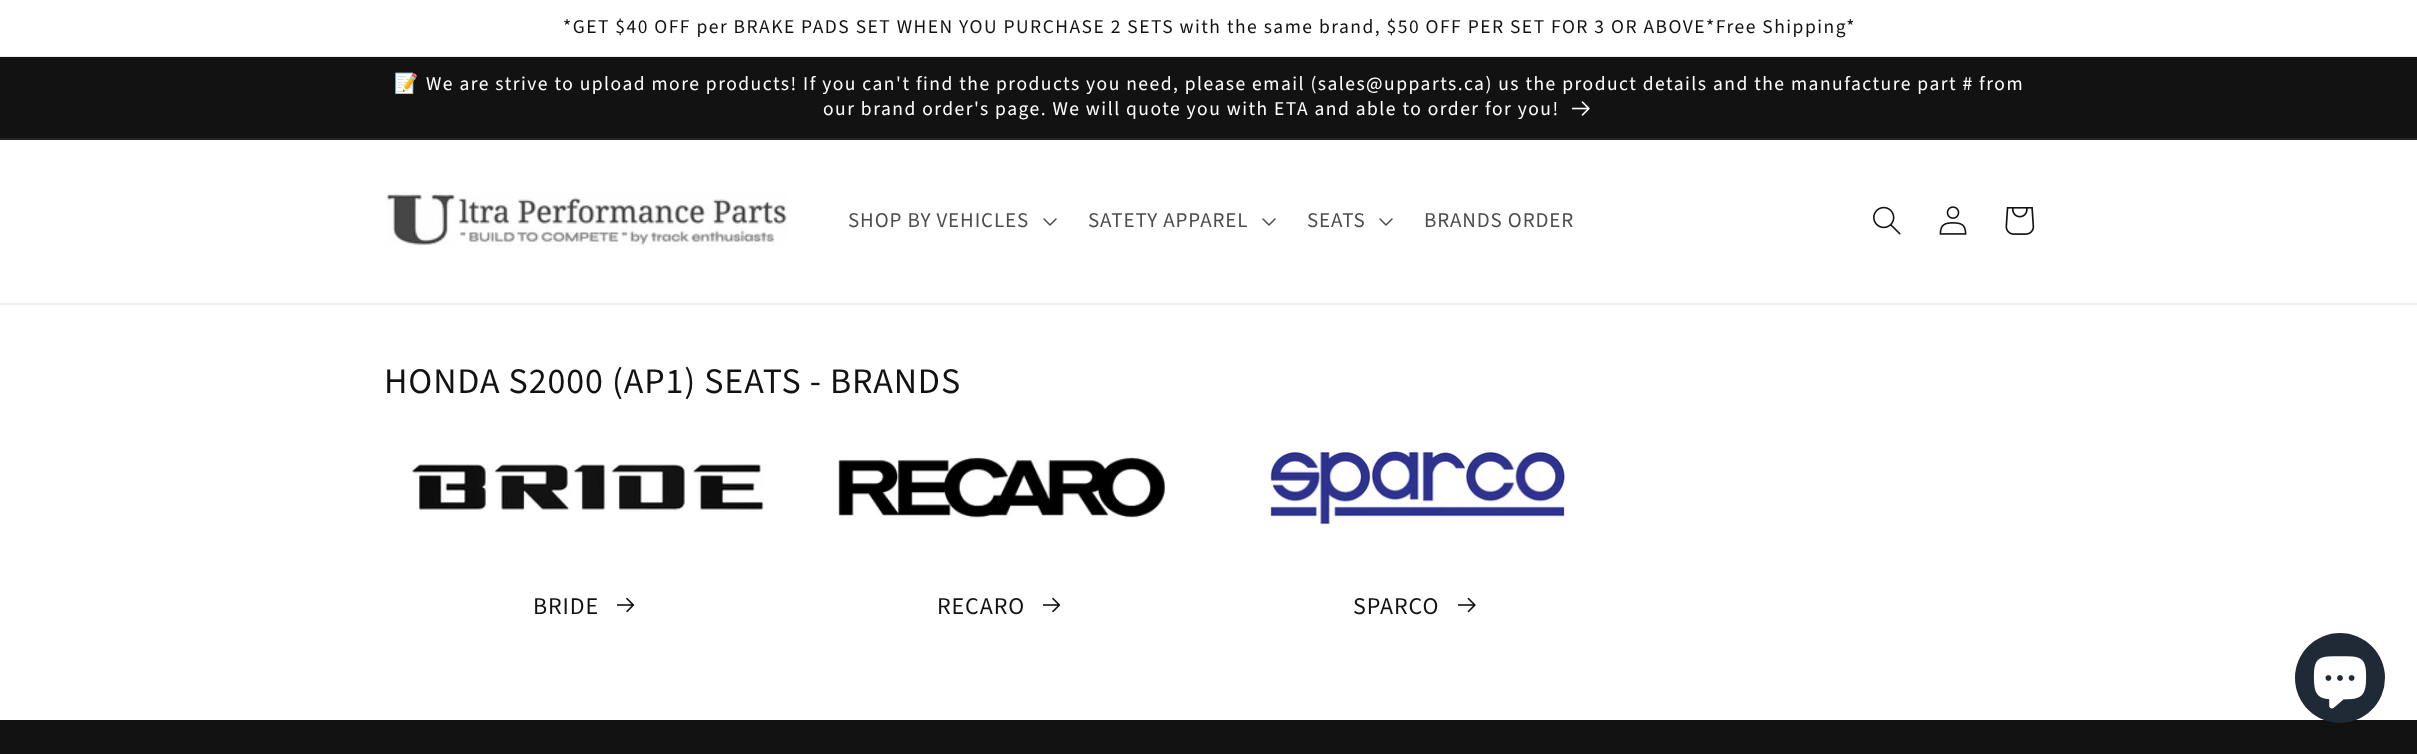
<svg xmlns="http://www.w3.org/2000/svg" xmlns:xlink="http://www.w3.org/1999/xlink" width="2417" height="754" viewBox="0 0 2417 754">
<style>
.cls-1{font:19.5px Source Sans Pro;letter-spacing:1.5px;fill:#121212}
.cls-2{font:19.5px Noto Color Emoji;letter-spacing:1.5px;fill:#ffffff}
.cls-3{font:19.5px Source Sans Pro;letter-spacing:1.5px;fill:#ffffff}
.cls-4{font:21px Source Sans Pro;letter-spacing:0.9px;fill:#4d4d4d}
.cls-5{font:36px Source Sans Pro;letter-spacing:0.9px;fill:#121212}
.cls-6{font:24px Source Sans Pro;letter-spacing:0.9px;fill:#121212}
</style>
<rect width="100%" height="100%" fill="#ffffff"/>
<rect fill="#ececec" x="0" y="56" width="2417" height="1"/>
<rect fill="#121212" x="0" y="57" width="2417" height="81"/>
<rect fill="#252525" x="0" y="138" width="2417" height="2"/>
<image xlink:href="image0.png" x="1572" y="101" width="18" height="15"/>
<rect fill="#ececec" x="0" y="303" width="2417" height="2"/>
<image xlink:href="image1.png" x="386" y="192" width="401" height="54"/>
<image xlink:href="image2.png" x="1043" y="218" width="14" height="8"/>
<image xlink:href="image2.png" x="1262" y="218" width="14" height="8"/>
<image xlink:href="image2.png" x="1379" y="218" width="14" height="8"/>
<image xlink:href="image3.png" x="1873" y="206" width="28" height="29"/>
<image xlink:href="image4.png" x="1939" y="206" width="28" height="29"/>
<image xlink:href="image5.png" x="2005" y="207" width="30" height="28"/>
<image xlink:href="image6.png" x="412" y="464" width="352" height="48"/>
<image xlink:href="image7.png" x="617" y="597" width="18" height="16"/>
<image xlink:href="image8.png" x="838" y="456" width="329" height="62"/>
<image xlink:href="image7.png" x="1043" y="597" width="18" height="16"/>
<image xlink:href="image9.png" x="1269" y="450" width="297" height="75"/>
<image xlink:href="image10.png" x="1458" y="597" width="18" height="16"/>
<rect fill="#121212" x="0" y="720" width="2417" height="34"/>
<circle fill="#202a36" cx="2340" cy="678" r="45"/>
<image xlink:href="image11.png" x="2313" y="656" width="54" height="53"/>
<text class="cls-1" x="563" y="33">*GET $40 OFF per BRAKE PADS SET WHEN YOU PURCHASE 2 SETS with the same brand, $50 OFF PER SET FOR 3 OR ABOVE*Free Shipping*</text>
<text class="cls-2" x="394" y="90">📝</text>
<text class="cls-3" x="426" y="90">We are strive to upload more products! If you can't find the products you need, please email (sales@upparts.ca) us the product details and the manufacture part # from</text>
<text class="cls-3" x="823" y="115">our brand order's page. We will quote you with ETA and able to order for you!</text>
<text class="cls-4" x="848" y="227">SHOP BY VEHICLES</text>
<text class="cls-4" x="1088" y="227">SATETY APPAREL</text>
<text class="cls-4" x="1307" y="227">SEATS</text>
<text class="cls-4" x="1424" y="227">BRANDS ORDER</text>
<text class="cls-5" x="384" y="393">HONDA S2000 (AP1) SEATS - BRANDS</text>
<text class="cls-6" x="533" y="614">BRIDE</text>
<text class="cls-6" x="937" y="614">RECARO</text>
<text class="cls-6" x="1353" y="614">SPARCO</text>
</svg>
